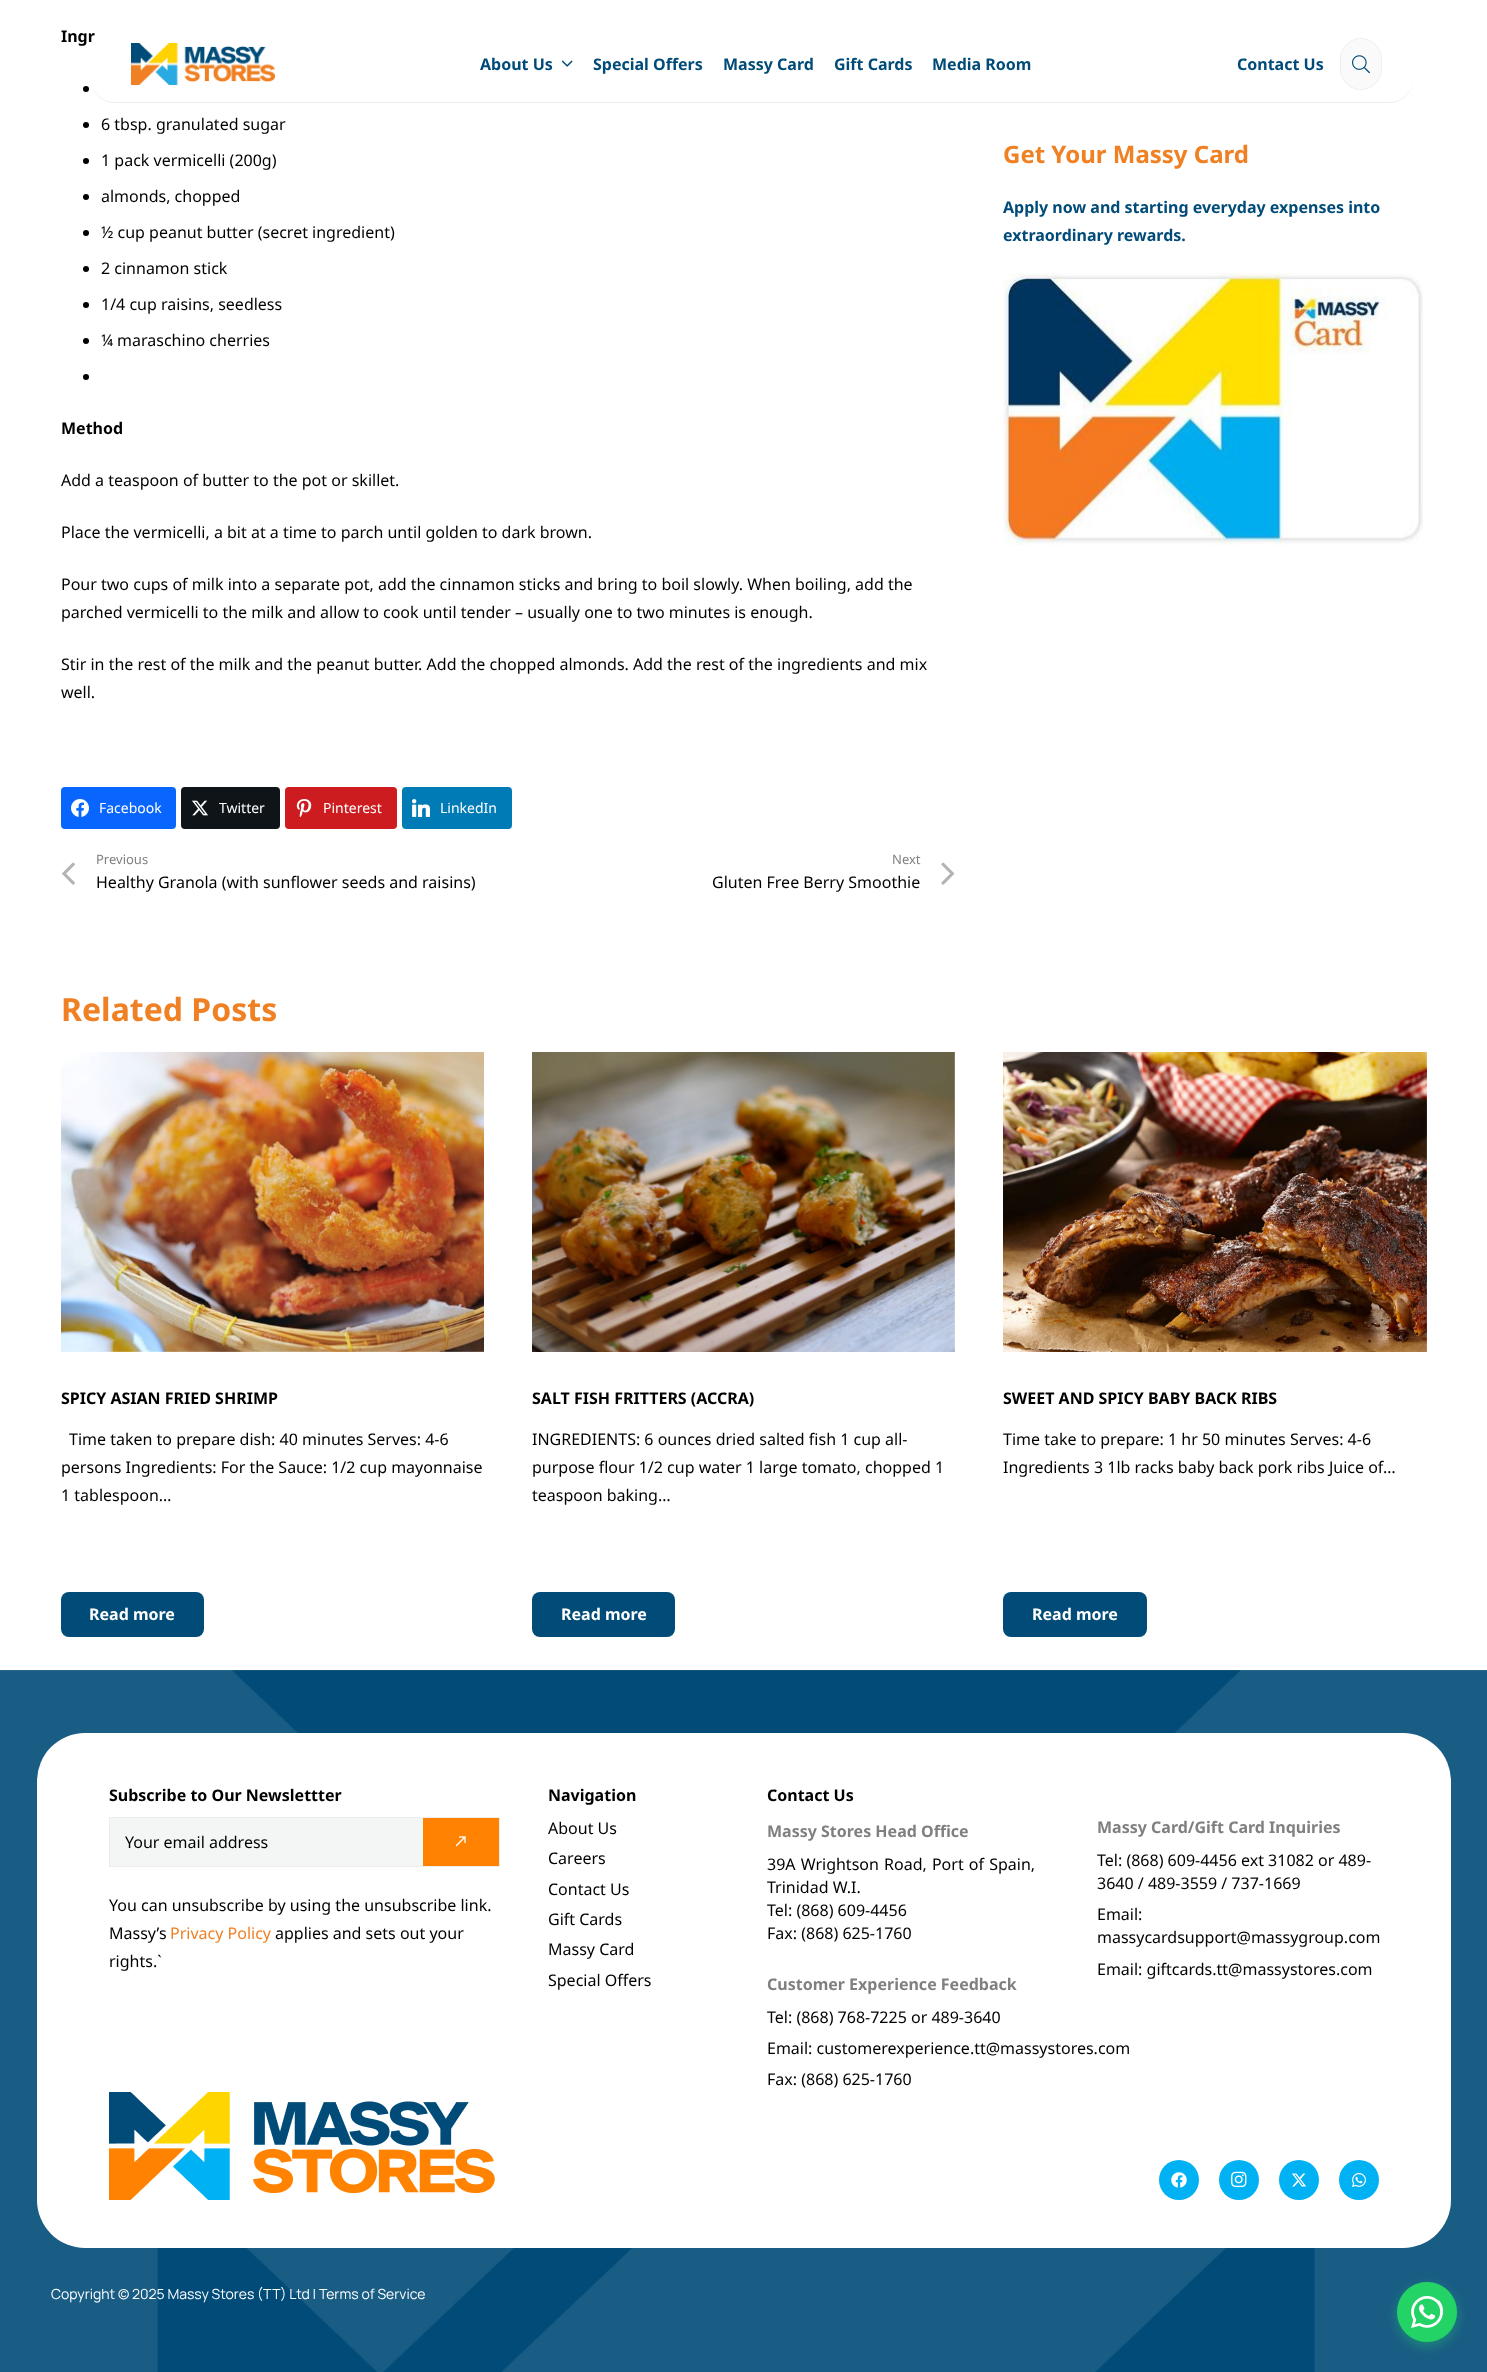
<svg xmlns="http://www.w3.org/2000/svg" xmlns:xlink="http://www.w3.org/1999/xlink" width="1487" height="2372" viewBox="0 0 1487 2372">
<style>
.cls-1{font:bold 16px Noto Sans;fill:#000000}
.cls-2{font:16px Noto Sans;fill:#000000}
.cls-3{font:14px Noto Sans;fill:#ffffff}
.cls-4{font:13px Noto Sans;fill:#808080}
.cls-5{font:bold 24px Noto Sans;fill:#ef8023}
.cls-6{font:bold 16px Noto Sans;fill:#004b78}
.cls-7{font:bold 32px Noto Sans;fill:#ef8023}
.cls-8{font:bold 16px Noto Sans;fill:#ffffff}
.cls-9{font:16px 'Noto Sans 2';fill:#000000}
.cls-10{font:16px Noto Sans;fill:#ef8023}
.cls-11{font:bold 16px Noto Sans;fill:#808080}
.cls-12{font:14px Manrope;fill:#ffffff}
</style>
<rect width="100%" height="100%" fill="#ffffff"/>
<circle fill="#000000" cx="86" cy="89" r="3"/>
<circle fill="#000000" cx="86" cy="125" r="3"/>
<circle fill="#000000" cx="86" cy="161" r="3"/>
<circle fill="#000000" cx="86" cy="197" r="3"/>
<circle fill="#000000" cx="86" cy="233" r="3"/>
<circle fill="#000000" cx="86" cy="269" r="3"/>
<circle fill="#000000" cx="86" cy="305" r="3"/>
<circle fill="#000000" cx="86" cy="341" r="3"/>
<circle fill="#000000" cx="86" cy="377" r="3"/>
<rect fill="#0866ff" x="61" y="787" width="115" height="42" rx="4"/>
<image xlink:href="image0.png" x="71" y="799" width="18" height="18"/>
<rect fill="#0f1419" x="181" y="787" width="99" height="42" rx="4"/>
<image xlink:href="image1.png" x="192" y="800" width="16" height="16"/>
<rect fill="#cd1c1f" x="285" y="787" width="112" height="42" rx="4"/>
<image xlink:href="image2.png" x="296" y="799" width="16" height="18"/>
<rect fill="#007bb6" x="402" y="787" width="110" height="42" rx="4"/>
<image xlink:href="image3.png" x="412" y="799" width="18" height="18"/>
<image xlink:href="image4.png" x="62" y="862" width="13" height="23"/>
<image xlink:href="image5.png" x="941" y="862" width="14" height="23"/>
<image xlink:href="image6.png" x="1003" y="273" width="420" height="273"/>
<image xlink:href="image7.png" x="61" y="1052" width="423" height="300"/>
<rect fill="#004b78" x="61" y="1592" width="143" height="45" rx="8"/>
<image xlink:href="image8.png" x="532" y="1052" width="423" height="300"/>
<rect fill="#004b78" x="532" y="1592" width="143" height="45" rx="8"/>
<image xlink:href="image9.png" x="1003" y="1052" width="424" height="300"/>
<rect fill="#004b78" x="1003" y="1592" width="144" height="45" rx="8"/>
<path fill="#ebebeb" d="M91 78V79C91 92 102 103 115 103H1389C1402 103 1413 92 1413 79V78C1413 91 1402 102 1389 102H115C102 102 91 91 91 78Z"/>
<image xlink:href="image13.png" x="0" y="1670" width="1487" height="702"/>
<rect fill="#ffffff" x="37" y="1733" width="1414" height="515" rx="48"/>
<rect fill="#f4f5f5" x="110" y="1818" width="313" height="48"/>
<rect fill="none" stroke="#ededed" x="109.5" y="1817.5" width="390" height="49"/>
<rect fill="#ff8200" x="423" y="1818" width="76" height="48"/>
<image xlink:href="image14.png" x="455" y="1836" width="11" height="11"/>
<image xlink:href="image15.png" x="109" y="2092" width="386" height="108"/>
<rect fill="#25d366" fill-opacity="0.4" filter="blur(6px)" x="1397" y="2286" width="60" height="60" rx="30"/>
<circle fill="#25d366" cx="1427" cy="2312" r="30"/>
<circle fill="#25d366" fill-opacity="0.3" cx="1427" cy="2312" r="30"/>
<image xlink:href="image16.png" x="1411" y="2296" width="32" height="32"/>
<circle fill="#00b1f4" cx="1179" cy="2180" r="20"/>
<image xlink:href="image17.png" x="1171" y="2172" width="16" height="16"/>
<circle fill="#00b1f4" cx="1239" cy="2180" r="20"/>
<image xlink:href="image18.png" x="1231" y="2171" width="16" height="17"/>
<circle fill="#00b1f4" cx="1299" cy="2180" r="20"/>
<image xlink:href="image19.png" x="1292" y="2173" width="15" height="14"/>
<circle fill="#00b1f4" cx="1359" cy="2180" r="20"/>
<image xlink:href="image20.png" x="1352" y="2173" width="14" height="14"/>
<text class="cls-1" x="61" y="42">Ingr</text>
<text class="cls-2" x="101" y="130">6 tbsp. granulated sugar</text>
<text class="cls-2" x="101" y="166">1 pack vermicelli (200g)</text>
<text class="cls-2" x="101" y="202">almonds, chopped</text>
<text class="cls-2" x="101" y="238">½ cup peanut butter (secret ingredient)</text>
<text class="cls-2" x="101" y="274">2 cinnamon stick</text>
<text class="cls-2" x="101" y="310">1/4 cup raisins, seedless</text>
<text class="cls-2" x="101" y="346">¼ maraschino cherries</text>
<text class="cls-1" x="61" y="434">Method</text>
<text class="cls-2" x="61" y="486">Add a teaspoon of butter to the pot or skillet.</text>
<text class="cls-2" x="61" y="538">Place the vermicelli, a bit at a time to parch until golden to dark brown.</text>
<text class="cls-2"><tspan x="61" y="590">Pour two cups of milk into a separate pot, add the cinnamon sticks and bring to boil slowly. When boiling, add the</tspan><tspan x="61" y="618">parched vermicelli to the milk and allow to cook until tender – usually one to two minutes is enough.</tspan></text>
<text class="cls-2"><tspan x="61" y="670">Stir in the rest of the milk and the peanut butter. Add the chopped almonds. Add the rest of the ingredients and mix</tspan><tspan x="61" y="698">well.</tspan></text>
<text class="cls-3" x="99" y="813">Facebook</text>
<text class="cls-3" x="219" y="813">Twitter</text>
<text class="cls-3" x="323" y="813">Pinterest</text>
<text class="cls-3" x="440" y="813">LinkedIn</text>
<text class="cls-4" x="96" y="864">Previous</text>
<text class="cls-2" x="96" y="888">Healthy Granola (with sunflower seeds and raisins)</text>
<text class="cls-4" x="892" y="864">Next</text>
<text class="cls-2" x="712" y="888">Gluten Free Berry Smoothie</text>
<text class="cls-5" x="1003" y="163">Get Your Massy Card</text>
<text class="cls-6"><tspan x="1003" y="213">Apply now and starting everyday expenses into</tspan><tspan x="1003" y="241">extraordinary rewards.</tspan></text>
<text class="cls-7" x="61" y="1021">Related Posts</text>
<text class="cls-1" x="61" y="1404">SPICY ASIAN FRIED SHRIMP</text>
<text class="cls-2" x="69" y="1445">Time taken to prepare dish: 40 minutes Serves: 4-6</text>
<text class="cls-2"><tspan x="61" y="1473">persons Ingredients: For the Sauce: 1/2 cup mayonnaise</tspan><tspan x="61" y="1501">1 tablespoon…</tspan></text>
<text class="cls-8" x="89" y="1620">Read more</text>
<text class="cls-1" x="532" y="1404">SALT FISH FRITTERS (ACCRA)</text>
<text class="cls-2"><tspan x="532" y="1445">INGREDIENTS: 6 ounces dried salted fish 1 cup all-</tspan><tspan x="532" y="1473">purpose flour 1/2 cup water 1 large tomato, chopped 1</tspan><tspan x="532" y="1501">teaspoon baking…</tspan></text>
<text class="cls-8" x="561" y="1620">Read more</text>
<text class="cls-1" x="1003" y="1404">SWEET AND SPICY BABY BACK RIBS</text>
<text class="cls-2"><tspan x="1003" y="1445">Time take to prepare: 1 hr 50 minutes Serves: 4-6</tspan><tspan x="1003" y="1473">Ingredients 3 1lb racks baby back pork ribs Juice of…</tspan></text>
<text class="cls-8" x="1032" y="1620">Read more</text>
<rect fill="#ffffff" x="91" y="26" width="1322" height="76" rx="24"/>
<image xlink:href="image10.png" x="131" y="43" width="144" height="42"/>
<text class="cls-6" x="480" y="70">About Us</text>
<image xlink:href="image11.png" x="561" y="60" width="12" height="7"/>
<text class="cls-6" x="593" y="70">Special Offers</text>
<text class="cls-6" x="723" y="70">Massy Card</text>
<text class="cls-6" x="834" y="70">Gift Cards</text>
<text class="cls-6" x="932" y="70">Media Room</text>
<text class="cls-6" x="1237" y="70">Contact Us</text>
<rect fill="#fafafa" stroke="#efefef" x="1340.5" y="38.5" width="41" height="51" rx="20.5"/>
<image xlink:href="image12.png" x="1352" y="55" width="18" height="19"/>
<text class="cls-1" x="109" y="1801">Subscribe to Our Newslettter</text>
<text class="cls-9" x="125" y="1848">Your email address</text>
<text class="cls-2"><tspan x="109" y="1911">You can unsubscribe by using the unsubscribe link.</tspan><tspan x="109" y="1939">Massy’s</tspan></text>
<text class="cls-10" x="170" y="1939">Privacy Policy</text>
<text class="cls-2" x="275" y="1939">applies and sets out your</text>
<text class="cls-2" x="109" y="1967">rights.`</text>
<text class="cls-1" x="548" y="1801">Navigation</text>
<text class="cls-2"><tspan x="548" y="1834">About Us</tspan><tspan x="548" y="1864">Careers</tspan><tspan x="548" y="1895">Contact Us</tspan><tspan x="548" y="1925">Gift Cards</tspan><tspan x="548" y="1955">Massy Card</tspan><tspan x="548" y="1986">Special Offers</tspan></text>
<text class="cls-1" x="767" y="1801">Contact Us</text>
<text class="cls-11" x="767" y="1837">Massy Stores Head Office</text>
<text class="cls-2"><tspan x="767" y="1870" word-spacing="1">39A Wrightson Road, Port of Spain,</tspan><tspan x="767" y="1893">Trinidad W.I.</tspan><tspan x="767" y="1916">Tel: (868) 609-4456</tspan><tspan x="767" y="1939">Fax: (868) 625-1760</tspan></text>
<text class="cls-11" x="767" y="1990">Customer Experience Feedback</text>
<text class="cls-2"><tspan x="767" y="2023">Tel: (868) 768-7225 or 489-3640</tspan><tspan x="767" y="2054">Email: customerexperience.tt@massystores.com</tspan><tspan x="767" y="2085">Fax: (868) 625-1760</tspan></text>
<text class="cls-11" x="1097" y="1833">Massy Card/Gift Card Inquiries</text>
<text class="cls-2"><tspan x="1097" y="1866">Tel: (868) 609-4456 ext 31082 or 489-</tspan><tspan x="1097" y="1889">3640 / 489-3559 / 737-1669</tspan><tspan x="1097" y="1920">Email:</tspan><tspan x="1097" y="1943">massycardsupport@massygroup.com</tspan></text>
<text class="cls-2" x="1097" y="1975">Email: giftcards.tt@massystores.com</text>
<text class="cls-12" x="51" y="2299">Copyright © 2025 Massy Stores (TT) Ltd | Terms of Service</text>
</svg>
